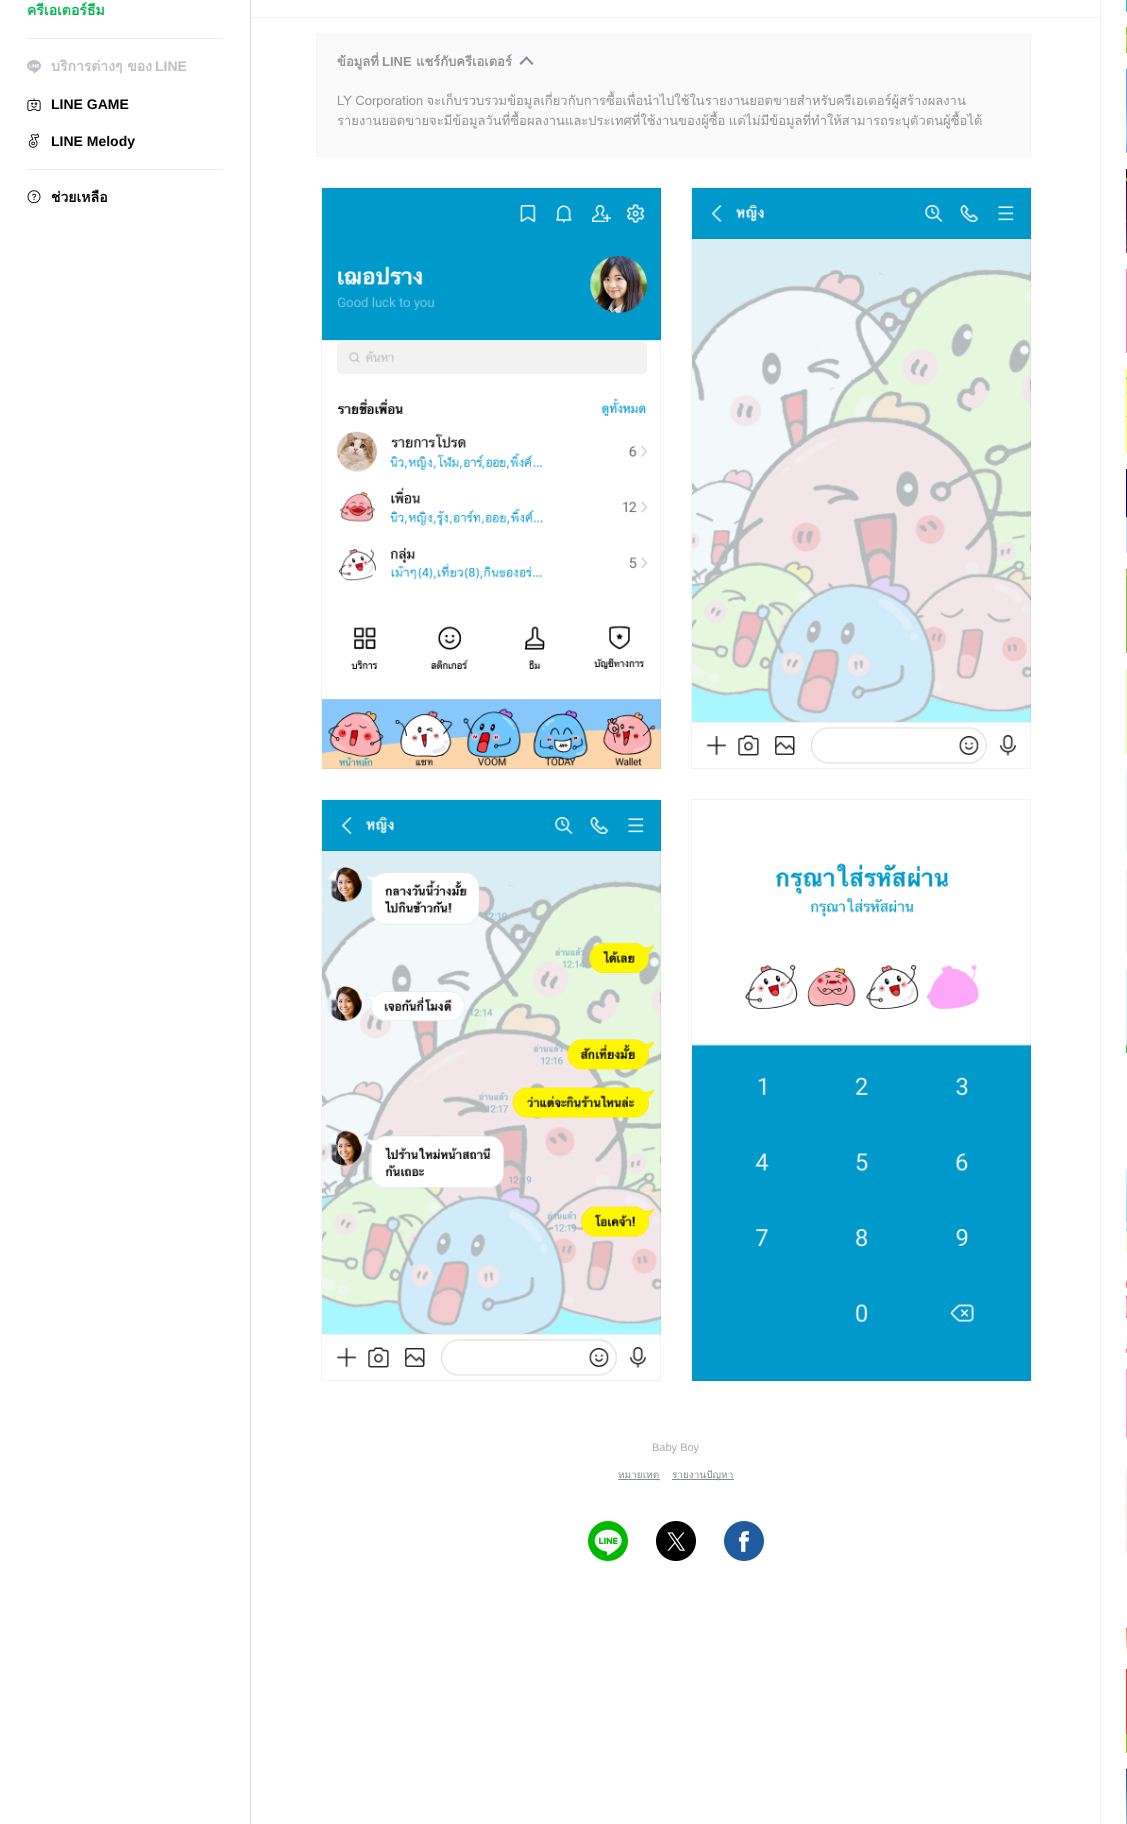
<svg xmlns="http://www.w3.org/2000/svg" xmlns:xlink="http://www.w3.org/1999/xlink" width="1127" height="1824" viewBox="0 0 1127 1824">
<style>
.cls-1{font:bold 14px Loma;fill:#00b84f}
.cls-2{font:bold 14px Loma;fill:#bec0c7}
.cls-3{font:bold 14px Liberation Sans;fill:#bec0c7}
.cls-4{font:bold 14px Liberation Sans;fill:#000000}
.cls-5{font:bold 14px Loma;fill:#000000}
.cls-6{font:bold 13px Loma;fill:#949494}
.cls-7{font:bold 13px Liberation Sans;fill:#949494}
.cls-8{font:13px Loma;fill:#949494}
.cls-9{font:11px Liberation Sans;fill:#adadad}
.cls-10{font:10px Loma;fill:#878b94}
</style>
<rect width="100%" height="100%" fill="#ffffff"/>
<rect fill="#ebebeb" x="27" y="38" width="196" height="1"/>
<image xlink:href="image0.png" x="27" y="60" width="14" height="14"/>
<image xlink:href="image1.png" x="27" y="98" width="14" height="14"/>
<image xlink:href="image2.png" x="28" y="133" width="12" height="15"/>
<rect fill="#ebebeb" x="27" y="169" width="196" height="1"/>
<image xlink:href="image3.png" x="27" y="190" width="14" height="14"/>
<rect fill="#d6d6d6" x="250" y="0" width="1" height="1824"/>
<rect fill="#f2f2f2" x="251" y="17" width="850" height="1"/>
<rect fill="#efefef" x="1100" y="0" width="1" height="1824"/>
<rect fill="#fafafa" stroke="#f5f5f5" x="316.5" y="34.5" width="714" height="122"/>
<path fill="#848a94" d="M519.5 63.5L526.5 56.5L528 57.5L521 65Z"/>
<path fill="#848a94" d="M525 57.5L526.5 56.5L533.5 63.5L532 65Z"/>
<image xlink:href="image4.png" x="322" y="188" width="339" height="581"/>
<rect fill="none" stroke="#000000" stroke-opacity="0.05" x="321.5" y="187.5" width="339" height="581"/>
<image xlink:href="image5.png" x="692" y="188" width="339" height="576"/>
<rect fill="none" stroke="#000000" stroke-opacity="0.05" x="691.5" y="187.5" width="339" height="581"/>
<image xlink:href="image6.png" x="322" y="800" width="339" height="576"/>
<rect fill="none" stroke="#000000" stroke-opacity="0.05" x="321.5" y="799.5" width="339" height="581"/>
<image xlink:href="image7.png" x="692" y="863" width="339" height="518"/>
<rect fill="none" stroke="#000000" stroke-opacity="0.05" x="691.5" y="799.5" width="339" height="581"/>
<rect fill="#878c95" x="618" y="1479" width="42" height="1"/>
<rect fill="#878c95" x="672" y="1479" width="62" height="1"/>
<image xlink:href="image8.png" x="588" y="1521" width="40" height="40"/>
<image xlink:href="image9.png" x="656" y="1521" width="40" height="40"/>
<image xlink:href="image10.png" x="724" y="1521" width="40" height="40"/>
<image xlink:href="image11.png" x="1126" y="0" width="1" height="53"/>
<image xlink:href="image12.png" x="1126" y="69" width="1" height="84"/>
<image xlink:href="image13.png" x="1126" y="169" width="1" height="84"/>
<rect fill="#f478af" x="1126" y="269" width="1" height="84"/>
<image xlink:href="image14.png" x="1126" y="369" width="1" height="84"/>
<image xlink:href="image15.png" x="1126" y="469" width="1" height="84"/>
<image xlink:href="image16.png" x="1126" y="569" width="1" height="84"/>
<rect fill="#daffa7" x="1126" y="669" width="1" height="84"/>
<rect fill="#e3f6fb" x="1126" y="769" width="1" height="84"/>
<image xlink:href="image17.png" x="1126" y="869" width="1" height="84"/>
<image xlink:href="image18.png" x="1126" y="969" width="1" height="84"/>
<image xlink:href="image19.png" x="1126" y="1087" width="1" height="65"/>
<image xlink:href="image20.png" x="1126" y="1169" width="1" height="84"/>
<image xlink:href="image21.png" x="1126" y="1279" width="1" height="74"/>
<image xlink:href="image22.png" x="1126" y="1369" width="1" height="69"/>
<image xlink:href="image23.png" x="1126" y="1469" width="1" height="84"/>
<image xlink:href="image24.png" x="1126" y="1627" width="1" height="26"/>
<image xlink:href="image25.png" x="1126" y="1669" width="1" height="84"/>
<image xlink:href="image26.png" x="1126" y="1769" width="1" height="55"/>
<text class="cls-1" x="27" y="15">ครีเอเตอร์ธีม</text>
<text class="cls-2" x="51" y="71">บริการต่างๆ ของ</text>
<text class="cls-3" x="155" y="71">LINE</text>
<text class="cls-4" x="51" y="109">LINE GAME</text>
<text class="cls-4" x="51" y="146">LINE Melody</text>
<text class="cls-5" x="51" y="202">ช่วยเหลือ</text>
<text class="cls-6" x="337" y="66">ข้อมูลที่</text>
<text class="cls-7" x="382" y="66">LINE</text>
<text class="cls-6" x="416" y="66">แชร์กับครีเอเตอร์</text>
<text class="cls-8"><tspan x="337" y="105" word-spacing="-1">LY Corporation จะเก็บรวบรวมข้อมูลเกี่ยวกับการซื้อเพื่อนำไปใช้ในรายงานยอดขายสำหรับครีเอเตอร์ผู้สร้างผลงาน</tspan><tspan x="337" y="125" word-spacing="-1">รายงานยอดขายจะมีข้อมูลวันที่ซื้อผลงานและประเทศที่ใช้งานของผู้ซื้อ แต่ไม่มีข้อมูลที่ทำให้สามารถระบุตัวตนผู้ซื้อได้</tspan></text>
<text class="cls-9" x="652" y="1451">Baby Boy</text>
<text class="cls-10" x="618" y="1478">หมายเหตุ</text>
<text class="cls-10" x="672" y="1478">รายงานปัญหา</text>
</svg>
